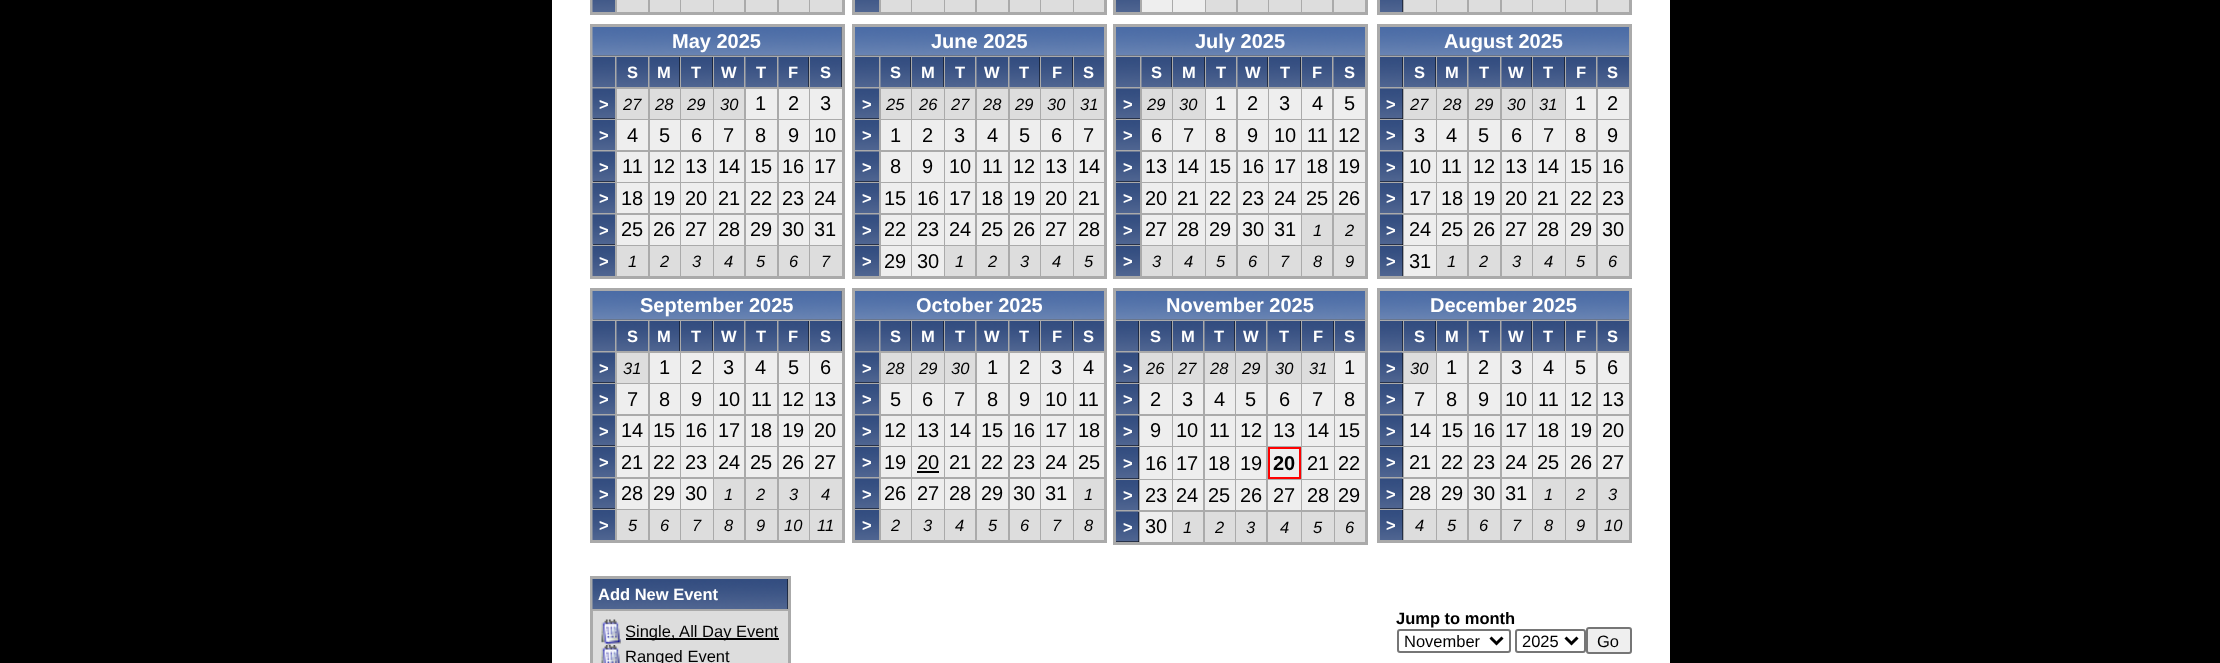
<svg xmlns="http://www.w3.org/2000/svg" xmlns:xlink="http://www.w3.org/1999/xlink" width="2220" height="663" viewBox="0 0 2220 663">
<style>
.cls-1{font:bold 20px Liberation Sans;fill:#ffffff}
.cls-2{font:bold 16.5px Liberation Sans;fill:#ffffff}
.cls-3{font:italic 16.5px Liberation Sans;fill:#000000}
.cls-4{font:20px Liberation Sans;fill:#000000}
.cls-5{font:bold 20px Liberation Sans;fill:#000000}
.cls-6{font:16.5px Liberation Sans;fill:#000000}
.cls-7{font:bold 16.5px Liberation Sans;fill:#000000}
</style>
<rect width="100%" height="100%" fill="#000000"/>
<rect fill="#ffffff" x="552" y="0" width="1118" height="663"/>
<rect fill="#aaaaaa" x="590" y="0" width="255" height="15"/>
<image xlink:href="image0.png" x="592" y="0" width="23" height="12"/>
<rect fill="#dddddd" x="617" y="0" width="31" height="12"/>
<rect fill="#dddddd" x="650" y="0" width="30" height="12"/>
<rect fill="#dddddd" x="681" y="0" width="32" height="12"/>
<rect fill="#dddddd" x="714" y="0" width="30" height="12"/>
<rect fill="#dddddd" x="746" y="0" width="31" height="12"/>
<rect fill="#dddddd" x="779" y="0" width="30" height="12"/>
<rect fill="#dddddd" x="810" y="0" width="32" height="12"/>
<rect fill="#aaaaaa" x="852" y="0" width="255" height="15"/>
<image xlink:href="image1.png" x="855" y="0" width="24" height="12"/>
<rect fill="#dddddd" x="881" y="0" width="30" height="12"/>
<rect fill="#dddddd" x="912" y="0" width="32" height="12"/>
<rect fill="#dddddd" x="945" y="0" width="30" height="12"/>
<rect fill="#dddddd" x="977" y="0" width="31" height="12"/>
<rect fill="#dddddd" x="1010" y="0" width="30" height="12"/>
<rect fill="#dddddd" x="1041" y="0" width="32" height="12"/>
<rect fill="#dddddd" x="1074" y="0" width="30" height="12"/>
<rect fill="#aaaaaa" x="1113" y="0" width="255" height="15"/>
<image xlink:href="image1.png" x="1116" y="0" width="24" height="12"/>
<rect fill="#eeeeee" x="1142" y="0" width="30" height="12"/>
<rect fill="#eeeeee" x="1173" y="0" width="32" height="12"/>
<rect fill="#dddddd" x="1206" y="0" width="30" height="12"/>
<rect fill="#dddddd" x="1238" y="0" width="30" height="12"/>
<rect fill="#dddddd" x="1269" y="0" width="32" height="12"/>
<rect fill="#dddddd" x="1302" y="0" width="30" height="12"/>
<rect fill="#dddddd" x="1334" y="0" width="31" height="12"/>
<rect fill="#aaaaaa" x="1377" y="0" width="255" height="15"/>
<rect fill="#000000" x="1402" y="0" width="1" height="12"/>
<image xlink:href="image2.png" x="1380" y="0" width="23" height="12"/>
<rect fill="#dddddd" x="1404" y="0" width="32" height="12"/>
<rect fill="#dddddd" x="1437" y="0" width="30" height="12"/>
<rect fill="#dddddd" x="1469" y="0" width="31" height="12"/>
<rect fill="#dddddd" x="1502" y="0" width="30" height="12"/>
<rect fill="#dddddd" x="1533" y="0" width="32" height="12"/>
<rect fill="#dddddd" x="1566" y="0" width="30" height="12"/>
<rect fill="#dddddd" x="1598" y="0" width="31" height="12"/>
<rect fill="#aaaaaa" x="590" y="24" width="255" height="255"/>
<rect fill="#666666" x="593" y="27" width="249" height="29"/>
<image xlink:href="image3.png" x="592" y="27" width="250" height="29"/>
<image xlink:href="image4.png" x="592" y="57" width="23" height="30"/>
<image xlink:href="image5.png" x="616" y="57" width="32" height="30"/>
<rect fill="#000000" x="679" y="57" width="1" height="30"/>
<image xlink:href="image6.png" x="649" y="57" width="31" height="30"/>
<rect fill="#000000" x="712" y="57" width="1" height="30"/>
<image xlink:href="image7.png" x="681" y="57" width="32" height="30"/>
<image xlink:href="image8.png" x="714" y="57" width="30" height="30"/>
<image xlink:href="image5.png" x="745" y="57" width="32" height="30"/>
<rect fill="#000000" x="808" y="57" width="1" height="30"/>
<image xlink:href="image6.png" x="778" y="57" width="31" height="30"/>
<rect fill="#000000" x="841" y="57" width="1" height="30"/>
<image xlink:href="image9.png" x="810" y="57" width="32" height="30"/>
<rect fill="#000000" x="593" y="118" width="22" height="1"/>
<image xlink:href="image10.png" x="592" y="88" width="23" height="31"/>
<rect fill="#dddddd" x="617" y="89" width="31" height="30"/>
<rect fill="#dddddd" x="650" y="89" width="30" height="30"/>
<rect fill="#dddddd" x="681" y="89" width="32" height="30"/>
<rect fill="#dddddd" x="714" y="89" width="30" height="30"/>
<rect fill="#eeeeee" x="746" y="89" width="31" height="30"/>
<rect fill="#eeeeee" x="779" y="89" width="30" height="30"/>
<rect fill="#eeeeee" x="810" y="89" width="32" height="30"/>
<image xlink:href="image4.png" x="592" y="120" width="23" height="30"/>
<rect fill="#eeeeee" x="617" y="120" width="31" height="30"/>
<rect fill="#eeeeee" x="650" y="120" width="30" height="30"/>
<rect fill="#eeeeee" x="681" y="120" width="32" height="30"/>
<rect fill="#eeeeee" x="714" y="120" width="30" height="30"/>
<rect fill="#eeeeee" x="746" y="120" width="31" height="30"/>
<rect fill="#eeeeee" x="779" y="120" width="30" height="30"/>
<rect fill="#eeeeee" x="810" y="120" width="32" height="30"/>
<rect fill="#000000" x="593" y="181" width="22" height="1"/>
<image xlink:href="image10.png" x="592" y="151" width="23" height="31"/>
<rect fill="#eeeeee" x="617" y="152" width="31" height="30"/>
<rect fill="#eeeeee" x="650" y="152" width="30" height="30"/>
<rect fill="#eeeeee" x="681" y="152" width="32" height="30"/>
<rect fill="#eeeeee" x="714" y="152" width="30" height="30"/>
<rect fill="#eeeeee" x="746" y="152" width="31" height="30"/>
<rect fill="#eeeeee" x="779" y="152" width="30" height="30"/>
<rect fill="#eeeeee" x="810" y="152" width="32" height="30"/>
<image xlink:href="image4.png" x="592" y="183" width="23" height="30"/>
<rect fill="#eeeeee" x="617" y="183" width="31" height="30"/>
<rect fill="#eeeeee" x="650" y="183" width="30" height="30"/>
<rect fill="#eeeeee" x="681" y="183" width="32" height="30"/>
<rect fill="#eeeeee" x="714" y="183" width="30" height="30"/>
<rect fill="#eeeeee" x="746" y="183" width="31" height="30"/>
<rect fill="#eeeeee" x="779" y="183" width="30" height="30"/>
<rect fill="#eeeeee" x="810" y="183" width="32" height="30"/>
<rect fill="#000000" x="593" y="244" width="22" height="1"/>
<image xlink:href="image10.png" x="592" y="214" width="23" height="31"/>
<rect fill="#eeeeee" x="617" y="215" width="31" height="30"/>
<rect fill="#eeeeee" x="650" y="215" width="30" height="30"/>
<rect fill="#eeeeee" x="681" y="215" width="32" height="30"/>
<rect fill="#eeeeee" x="714" y="215" width="30" height="30"/>
<rect fill="#eeeeee" x="746" y="215" width="31" height="30"/>
<rect fill="#eeeeee" x="779" y="215" width="30" height="30"/>
<rect fill="#eeeeee" x="810" y="215" width="32" height="30"/>
<image xlink:href="image4.png" x="592" y="246" width="23" height="30"/>
<rect fill="#dddddd" x="617" y="246" width="31" height="30"/>
<rect fill="#dddddd" x="650" y="246" width="30" height="30"/>
<rect fill="#dddddd" x="681" y="246" width="32" height="30"/>
<rect fill="#dddddd" x="714" y="246" width="30" height="30"/>
<rect fill="#dddddd" x="746" y="246" width="31" height="30"/>
<rect fill="#dddddd" x="779" y="246" width="30" height="30"/>
<rect fill="#dddddd" x="810" y="246" width="32" height="30"/>
<rect fill="#aaaaaa" x="852" y="24" width="255" height="255"/>
<rect fill="#666666" x="855" y="55" width="249" height="1"/>
<image xlink:href="image11.png" x="855" y="27" width="249" height="29"/>
<image xlink:href="image12.png" x="855" y="57" width="24" height="30"/>
<rect fill="#000000" x="910" y="57" width="1" height="30"/>
<image xlink:href="image13.png" x="880" y="57" width="31" height="30"/>
<rect fill="#000000" x="943" y="57" width="1" height="30"/>
<image xlink:href="image7.png" x="912" y="57" width="32" height="30"/>
<image xlink:href="image8.png" x="945" y="57" width="30" height="30"/>
<image xlink:href="image5.png" x="976" y="57" width="32" height="30"/>
<rect fill="#000000" x="1039" y="57" width="1" height="30"/>
<image xlink:href="image6.png" x="1009" y="57" width="31" height="30"/>
<rect fill="#000000" x="1072" y="57" width="1" height="30"/>
<image xlink:href="image7.png" x="1041" y="57" width="32" height="30"/>
<image xlink:href="image14.png" x="1074" y="57" width="30" height="30"/>
<rect fill="#000000" x="855" y="118" width="24" height="1"/>
<image xlink:href="image15.png" x="855" y="88" width="24" height="31"/>
<rect fill="#dddddd" x="881" y="89" width="30" height="30"/>
<rect fill="#dddddd" x="912" y="89" width="32" height="30"/>
<rect fill="#dddddd" x="945" y="89" width="30" height="30"/>
<rect fill="#dddddd" x="977" y="89" width="31" height="30"/>
<rect fill="#dddddd" x="1010" y="89" width="30" height="30"/>
<rect fill="#dddddd" x="1041" y="89" width="32" height="30"/>
<rect fill="#dddddd" x="1074" y="89" width="30" height="30"/>
<image xlink:href="image12.png" x="855" y="120" width="24" height="30"/>
<rect fill="#eeeeee" x="881" y="120" width="30" height="30"/>
<rect fill="#eeeeee" x="912" y="120" width="32" height="30"/>
<rect fill="#eeeeee" x="945" y="120" width="30" height="30"/>
<rect fill="#eeeeee" x="977" y="120" width="31" height="30"/>
<rect fill="#eeeeee" x="1010" y="120" width="30" height="30"/>
<rect fill="#eeeeee" x="1041" y="120" width="32" height="30"/>
<rect fill="#eeeeee" x="1074" y="120" width="30" height="30"/>
<rect fill="#000000" x="855" y="181" width="24" height="1"/>
<image xlink:href="image15.png" x="855" y="151" width="24" height="31"/>
<rect fill="#eeeeee" x="881" y="152" width="30" height="30"/>
<rect fill="#eeeeee" x="912" y="152" width="32" height="30"/>
<rect fill="#eeeeee" x="945" y="152" width="30" height="30"/>
<rect fill="#eeeeee" x="977" y="152" width="31" height="30"/>
<rect fill="#eeeeee" x="1010" y="152" width="30" height="30"/>
<rect fill="#eeeeee" x="1041" y="152" width="32" height="30"/>
<rect fill="#eeeeee" x="1074" y="152" width="30" height="30"/>
<image xlink:href="image12.png" x="855" y="183" width="24" height="30"/>
<rect fill="#eeeeee" x="881" y="183" width="30" height="30"/>
<rect fill="#eeeeee" x="912" y="183" width="32" height="30"/>
<rect fill="#eeeeee" x="945" y="183" width="30" height="30"/>
<rect fill="#eeeeee" x="977" y="183" width="31" height="30"/>
<rect fill="#eeeeee" x="1010" y="183" width="30" height="30"/>
<rect fill="#eeeeee" x="1041" y="183" width="32" height="30"/>
<rect fill="#eeeeee" x="1074" y="183" width="30" height="30"/>
<rect fill="#000000" x="855" y="244" width="24" height="1"/>
<image xlink:href="image15.png" x="855" y="214" width="24" height="31"/>
<rect fill="#eeeeee" x="881" y="215" width="30" height="30"/>
<rect fill="#eeeeee" x="912" y="215" width="32" height="30"/>
<rect fill="#eeeeee" x="945" y="215" width="30" height="30"/>
<rect fill="#eeeeee" x="977" y="215" width="31" height="30"/>
<rect fill="#eeeeee" x="1010" y="215" width="30" height="30"/>
<rect fill="#eeeeee" x="1041" y="215" width="32" height="30"/>
<rect fill="#eeeeee" x="1074" y="215" width="30" height="30"/>
<image xlink:href="image12.png" x="855" y="246" width="24" height="30"/>
<rect fill="#eeeeee" x="881" y="246" width="30" height="30"/>
<rect fill="#eeeeee" x="912" y="246" width="32" height="30"/>
<rect fill="#dddddd" x="945" y="246" width="30" height="30"/>
<rect fill="#dddddd" x="977" y="246" width="31" height="30"/>
<rect fill="#dddddd" x="1010" y="246" width="30" height="30"/>
<rect fill="#dddddd" x="1041" y="246" width="32" height="30"/>
<rect fill="#dddddd" x="1074" y="246" width="30" height="30"/>
<rect fill="#aaaaaa" x="1113" y="24" width="255" height="255"/>
<rect fill="#666666" x="1116" y="55" width="249" height="1"/>
<image xlink:href="image16.png" x="1116" y="27" width="249" height="29"/>
<image xlink:href="image12.png" x="1116" y="57" width="24" height="30"/>
<rect fill="#000000" x="1171" y="57" width="1" height="30"/>
<image xlink:href="image6.png" x="1141" y="57" width="31" height="30"/>
<rect fill="#000000" x="1204" y="57" width="1" height="30"/>
<image xlink:href="image7.png" x="1173" y="57" width="32" height="30"/>
<image xlink:href="image8.png" x="1206" y="57" width="30" height="30"/>
<rect fill="#000000" x="1267" y="57" width="1" height="30"/>
<image xlink:href="image13.png" x="1237" y="57" width="31" height="30"/>
<rect fill="#000000" x="1300" y="57" width="1" height="30"/>
<image xlink:href="image7.png" x="1269" y="57" width="32" height="30"/>
<image xlink:href="image8.png" x="1302" y="57" width="30" height="30"/>
<image xlink:href="image17.png" x="1333" y="57" width="32" height="30"/>
<rect fill="#000000" x="1116" y="118" width="24" height="1"/>
<image xlink:href="image15.png" x="1116" y="88" width="24" height="31"/>
<rect fill="#dddddd" x="1142" y="89" width="30" height="30"/>
<rect fill="#dddddd" x="1173" y="89" width="32" height="30"/>
<rect fill="#eeeeee" x="1206" y="89" width="30" height="30"/>
<rect fill="#eeeeee" x="1238" y="89" width="30" height="30"/>
<rect fill="#eeeeee" x="1269" y="89" width="32" height="30"/>
<rect fill="#eeeeee" x="1302" y="89" width="30" height="30"/>
<rect fill="#eeeeee" x="1334" y="89" width="31" height="30"/>
<image xlink:href="image12.png" x="1116" y="120" width="24" height="30"/>
<rect fill="#eeeeee" x="1142" y="120" width="30" height="30"/>
<rect fill="#eeeeee" x="1173" y="120" width="32" height="30"/>
<rect fill="#eeeeee" x="1206" y="120" width="30" height="30"/>
<rect fill="#eeeeee" x="1238" y="120" width="30" height="30"/>
<rect fill="#eeeeee" x="1269" y="120" width="32" height="30"/>
<rect fill="#eeeeee" x="1302" y="120" width="30" height="30"/>
<rect fill="#eeeeee" x="1334" y="120" width="31" height="30"/>
<rect fill="#000000" x="1116" y="181" width="24" height="1"/>
<image xlink:href="image15.png" x="1116" y="151" width="24" height="31"/>
<rect fill="#eeeeee" x="1142" y="152" width="30" height="30"/>
<rect fill="#eeeeee" x="1173" y="152" width="32" height="30"/>
<rect fill="#eeeeee" x="1206" y="152" width="30" height="30"/>
<rect fill="#eeeeee" x="1238" y="152" width="30" height="30"/>
<rect fill="#eeeeee" x="1269" y="152" width="32" height="30"/>
<rect fill="#eeeeee" x="1302" y="152" width="30" height="30"/>
<rect fill="#eeeeee" x="1334" y="152" width="31" height="30"/>
<image xlink:href="image12.png" x="1116" y="183" width="24" height="30"/>
<rect fill="#eeeeee" x="1142" y="183" width="30" height="30"/>
<rect fill="#eeeeee" x="1173" y="183" width="32" height="30"/>
<rect fill="#eeeeee" x="1206" y="183" width="30" height="30"/>
<rect fill="#eeeeee" x="1238" y="183" width="30" height="30"/>
<rect fill="#eeeeee" x="1269" y="183" width="32" height="30"/>
<rect fill="#eeeeee" x="1302" y="183" width="30" height="30"/>
<rect fill="#eeeeee" x="1334" y="183" width="31" height="30"/>
<rect fill="#000000" x="1116" y="244" width="24" height="1"/>
<image xlink:href="image15.png" x="1116" y="214" width="24" height="31"/>
<rect fill="#eeeeee" x="1142" y="215" width="30" height="30"/>
<rect fill="#eeeeee" x="1173" y="215" width="32" height="30"/>
<rect fill="#eeeeee" x="1206" y="215" width="30" height="30"/>
<rect fill="#eeeeee" x="1238" y="215" width="30" height="30"/>
<rect fill="#eeeeee" x="1269" y="215" width="32" height="30"/>
<rect fill="#dddddd" x="1302" y="215" width="30" height="30"/>
<rect fill="#dddddd" x="1334" y="215" width="31" height="30"/>
<image xlink:href="image12.png" x="1116" y="246" width="24" height="30"/>
<rect fill="#dddddd" x="1142" y="246" width="30" height="30"/>
<rect fill="#dddddd" x="1173" y="246" width="32" height="30"/>
<rect fill="#dddddd" x="1206" y="246" width="30" height="30"/>
<rect fill="#dddddd" x="1238" y="246" width="30" height="30"/>
<rect fill="#dddddd" x="1269" y="246" width="32" height="30"/>
<rect fill="#dddddd" x="1302" y="246" width="30" height="30"/>
<rect fill="#dddddd" x="1334" y="246" width="31" height="30"/>
<rect fill="#aaaaaa" x="1377" y="24" width="255" height="255"/>
<rect fill="#666666" x="1380" y="55" width="249" height="1"/>
<image xlink:href="image18.png" x="1380" y="27" width="249" height="29"/>
<rect fill="#000000" x="1402" y="57" width="1" height="30"/>
<image xlink:href="image19.png" x="1380" y="57" width="23" height="30"/>
<rect fill="#000000" x="1435" y="57" width="1" height="30"/>
<image xlink:href="image7.png" x="1404" y="57" width="32" height="30"/>
<image xlink:href="image8.png" x="1437" y="57" width="30" height="30"/>
<image xlink:href="image5.png" x="1468" y="57" width="32" height="30"/>
<rect fill="#000000" x="1531" y="57" width="1" height="30"/>
<image xlink:href="image6.png" x="1501" y="57" width="31" height="30"/>
<rect fill="#000000" x="1564" y="57" width="1" height="30"/>
<image xlink:href="image7.png" x="1533" y="57" width="32" height="30"/>
<image xlink:href="image8.png" x="1566" y="57" width="30" height="30"/>
<image xlink:href="image17.png" x="1597" y="57" width="32" height="30"/>
<rect fill="#000000" x="1380" y="89" width="23" height="30"/>
<image xlink:href="image20.png" x="1380" y="88" width="23" height="31"/>
<rect fill="#dddddd" x="1404" y="89" width="32" height="30"/>
<rect fill="#dddddd" x="1437" y="89" width="30" height="30"/>
<rect fill="#dddddd" x="1469" y="89" width="31" height="30"/>
<rect fill="#dddddd" x="1502" y="89" width="30" height="30"/>
<rect fill="#dddddd" x="1533" y="89" width="32" height="30"/>
<rect fill="#eeeeee" x="1566" y="89" width="30" height="30"/>
<rect fill="#eeeeee" x="1598" y="89" width="31" height="30"/>
<rect fill="#000000" x="1402" y="120" width="1" height="30"/>
<image xlink:href="image19.png" x="1380" y="120" width="23" height="30"/>
<rect fill="#eeeeee" x="1404" y="120" width="32" height="30"/>
<rect fill="#eeeeee" x="1437" y="120" width="30" height="30"/>
<rect fill="#eeeeee" x="1469" y="120" width="31" height="30"/>
<rect fill="#eeeeee" x="1502" y="120" width="30" height="30"/>
<rect fill="#eeeeee" x="1533" y="120" width="32" height="30"/>
<rect fill="#eeeeee" x="1566" y="120" width="30" height="30"/>
<rect fill="#eeeeee" x="1598" y="120" width="31" height="30"/>
<rect fill="#000000" x="1380" y="152" width="23" height="30"/>
<image xlink:href="image20.png" x="1380" y="151" width="23" height="31"/>
<rect fill="#eeeeee" x="1404" y="152" width="32" height="30"/>
<rect fill="#eeeeee" x="1437" y="152" width="30" height="30"/>
<rect fill="#eeeeee" x="1469" y="152" width="31" height="30"/>
<rect fill="#eeeeee" x="1502" y="152" width="30" height="30"/>
<rect fill="#eeeeee" x="1533" y="152" width="32" height="30"/>
<rect fill="#eeeeee" x="1566" y="152" width="30" height="30"/>
<rect fill="#eeeeee" x="1598" y="152" width="31" height="30"/>
<rect fill="#000000" x="1402" y="183" width="1" height="30"/>
<image xlink:href="image19.png" x="1380" y="183" width="23" height="30"/>
<rect fill="#eeeeee" x="1404" y="183" width="32" height="30"/>
<rect fill="#eeeeee" x="1437" y="183" width="30" height="30"/>
<rect fill="#eeeeee" x="1469" y="183" width="31" height="30"/>
<rect fill="#eeeeee" x="1502" y="183" width="30" height="30"/>
<rect fill="#eeeeee" x="1533" y="183" width="32" height="30"/>
<rect fill="#eeeeee" x="1566" y="183" width="30" height="30"/>
<rect fill="#eeeeee" x="1598" y="183" width="31" height="30"/>
<rect fill="#000000" x="1380" y="215" width="23" height="30"/>
<image xlink:href="image20.png" x="1380" y="214" width="23" height="31"/>
<rect fill="#eeeeee" x="1404" y="215" width="32" height="30"/>
<rect fill="#eeeeee" x="1437" y="215" width="30" height="30"/>
<rect fill="#eeeeee" x="1469" y="215" width="31" height="30"/>
<rect fill="#eeeeee" x="1502" y="215" width="30" height="30"/>
<rect fill="#eeeeee" x="1533" y="215" width="32" height="30"/>
<rect fill="#eeeeee" x="1566" y="215" width="30" height="30"/>
<rect fill="#eeeeee" x="1598" y="215" width="31" height="30"/>
<rect fill="#000000" x="1402" y="246" width="1" height="30"/>
<image xlink:href="image19.png" x="1380" y="246" width="23" height="30"/>
<rect fill="#eeeeee" x="1404" y="246" width="32" height="30"/>
<rect fill="#dddddd" x="1437" y="246" width="30" height="30"/>
<rect fill="#dddddd" x="1469" y="246" width="31" height="30"/>
<rect fill="#dddddd" x="1502" y="246" width="30" height="30"/>
<rect fill="#dddddd" x="1533" y="246" width="32" height="30"/>
<rect fill="#dddddd" x="1566" y="246" width="30" height="30"/>
<rect fill="#dddddd" x="1598" y="246" width="31" height="30"/>
<rect fill="#aaaaaa" x="590" y="288" width="255" height="255"/>
<rect fill="#666666" x="593" y="291" width="249" height="29"/>
<image xlink:href="image21.png" x="592" y="291" width="250" height="29"/>
<image xlink:href="image4.png" x="592" y="321" width="23" height="30"/>
<image xlink:href="image5.png" x="616" y="321" width="32" height="30"/>
<rect fill="#000000" x="679" y="321" width="1" height="30"/>
<image xlink:href="image6.png" x="649" y="321" width="31" height="30"/>
<rect fill="#000000" x="712" y="321" width="1" height="30"/>
<image xlink:href="image7.png" x="681" y="321" width="32" height="30"/>
<image xlink:href="image8.png" x="714" y="321" width="30" height="30"/>
<image xlink:href="image5.png" x="745" y="321" width="32" height="30"/>
<rect fill="#000000" x="808" y="321" width="1" height="30"/>
<image xlink:href="image6.png" x="778" y="321" width="31" height="30"/>
<rect fill="#000000" x="841" y="321" width="1" height="30"/>
<image xlink:href="image9.png" x="810" y="321" width="32" height="30"/>
<rect fill="#000000" x="593" y="382" width="22" height="1"/>
<image xlink:href="image10.png" x="592" y="352" width="23" height="31"/>
<rect fill="#dddddd" x="617" y="353" width="31" height="30"/>
<rect fill="#eeeeee" x="650" y="353" width="30" height="30"/>
<rect fill="#eeeeee" x="681" y="353" width="32" height="30"/>
<rect fill="#eeeeee" x="714" y="353" width="30" height="30"/>
<rect fill="#eeeeee" x="746" y="353" width="31" height="30"/>
<rect fill="#eeeeee" x="779" y="353" width="30" height="30"/>
<rect fill="#eeeeee" x="810" y="353" width="32" height="30"/>
<image xlink:href="image4.png" x="592" y="384" width="23" height="30"/>
<rect fill="#eeeeee" x="617" y="384" width="31" height="30"/>
<rect fill="#eeeeee" x="650" y="384" width="30" height="30"/>
<rect fill="#eeeeee" x="681" y="384" width="32" height="30"/>
<rect fill="#eeeeee" x="714" y="384" width="30" height="30"/>
<rect fill="#eeeeee" x="746" y="384" width="31" height="30"/>
<rect fill="#eeeeee" x="779" y="384" width="30" height="30"/>
<rect fill="#eeeeee" x="810" y="384" width="32" height="30"/>
<rect fill="#000000" x="593" y="445" width="22" height="1"/>
<image xlink:href="image10.png" x="592" y="415" width="23" height="31"/>
<rect fill="#eeeeee" x="617" y="416" width="31" height="30"/>
<rect fill="#eeeeee" x="650" y="416" width="30" height="30"/>
<rect fill="#eeeeee" x="681" y="416" width="32" height="30"/>
<rect fill="#eeeeee" x="714" y="416" width="30" height="30"/>
<rect fill="#eeeeee" x="746" y="416" width="31" height="30"/>
<rect fill="#eeeeee" x="779" y="416" width="30" height="30"/>
<rect fill="#eeeeee" x="810" y="416" width="32" height="30"/>
<image xlink:href="image4.png" x="592" y="447" width="23" height="30"/>
<rect fill="#eeeeee" x="617" y="447" width="31" height="30"/>
<rect fill="#eeeeee" x="650" y="447" width="30" height="30"/>
<rect fill="#eeeeee" x="681" y="447" width="32" height="30"/>
<rect fill="#eeeeee" x="714" y="447" width="30" height="30"/>
<rect fill="#eeeeee" x="746" y="447" width="31" height="30"/>
<rect fill="#eeeeee" x="779" y="447" width="30" height="30"/>
<rect fill="#eeeeee" x="810" y="447" width="32" height="30"/>
<rect fill="#000000" x="593" y="508" width="22" height="1"/>
<image xlink:href="image10.png" x="592" y="478" width="23" height="31"/>
<rect fill="#eeeeee" x="617" y="479" width="31" height="30"/>
<rect fill="#eeeeee" x="650" y="479" width="30" height="30"/>
<rect fill="#eeeeee" x="681" y="479" width="32" height="30"/>
<rect fill="#dddddd" x="714" y="479" width="30" height="30"/>
<rect fill="#dddddd" x="746" y="479" width="31" height="30"/>
<rect fill="#dddddd" x="779" y="479" width="30" height="30"/>
<rect fill="#dddddd" x="810" y="479" width="32" height="30"/>
<image xlink:href="image4.png" x="592" y="510" width="23" height="30"/>
<rect fill="#dddddd" x="617" y="510" width="31" height="30"/>
<rect fill="#dddddd" x="650" y="510" width="30" height="30"/>
<rect fill="#dddddd" x="681" y="510" width="32" height="30"/>
<rect fill="#dddddd" x="714" y="510" width="30" height="30"/>
<rect fill="#dddddd" x="746" y="510" width="31" height="30"/>
<rect fill="#dddddd" x="779" y="510" width="30" height="30"/>
<rect fill="#dddddd" x="810" y="510" width="32" height="30"/>
<rect fill="#aaaaaa" x="852" y="288" width="255" height="255"/>
<rect fill="#666666" x="855" y="319" width="249" height="1"/>
<image xlink:href="image22.png" x="855" y="291" width="249" height="29"/>
<image xlink:href="image12.png" x="855" y="321" width="24" height="30"/>
<rect fill="#000000" x="910" y="321" width="1" height="30"/>
<image xlink:href="image13.png" x="880" y="321" width="31" height="30"/>
<rect fill="#000000" x="943" y="321" width="1" height="30"/>
<image xlink:href="image7.png" x="912" y="321" width="32" height="30"/>
<image xlink:href="image8.png" x="945" y="321" width="30" height="30"/>
<image xlink:href="image5.png" x="976" y="321" width="32" height="30"/>
<rect fill="#000000" x="1039" y="321" width="1" height="30"/>
<image xlink:href="image6.png" x="1009" y="321" width="31" height="30"/>
<rect fill="#000000" x="1072" y="321" width="1" height="30"/>
<image xlink:href="image7.png" x="1041" y="321" width="32" height="30"/>
<image xlink:href="image14.png" x="1074" y="321" width="30" height="30"/>
<rect fill="#000000" x="855" y="382" width="24" height="1"/>
<image xlink:href="image15.png" x="855" y="352" width="24" height="31"/>
<rect fill="#dddddd" x="881" y="353" width="30" height="30"/>
<rect fill="#dddddd" x="912" y="353" width="32" height="30"/>
<rect fill="#dddddd" x="945" y="353" width="30" height="30"/>
<rect fill="#eeeeee" x="977" y="353" width="31" height="30"/>
<rect fill="#eeeeee" x="1010" y="353" width="30" height="30"/>
<rect fill="#eeeeee" x="1041" y="353" width="32" height="30"/>
<rect fill="#eeeeee" x="1074" y="353" width="30" height="30"/>
<image xlink:href="image12.png" x="855" y="384" width="24" height="30"/>
<rect fill="#eeeeee" x="881" y="384" width="30" height="30"/>
<rect fill="#eeeeee" x="912" y="384" width="32" height="30"/>
<rect fill="#eeeeee" x="945" y="384" width="30" height="30"/>
<rect fill="#eeeeee" x="977" y="384" width="31" height="30"/>
<rect fill="#eeeeee" x="1010" y="384" width="30" height="30"/>
<rect fill="#eeeeee" x="1041" y="384" width="32" height="30"/>
<rect fill="#eeeeee" x="1074" y="384" width="30" height="30"/>
<rect fill="#000000" x="855" y="445" width="24" height="1"/>
<image xlink:href="image15.png" x="855" y="415" width="24" height="31"/>
<rect fill="#eeeeee" x="881" y="416" width="30" height="30"/>
<rect fill="#eeeeee" x="912" y="416" width="32" height="30"/>
<rect fill="#eeeeee" x="945" y="416" width="30" height="30"/>
<rect fill="#eeeeee" x="977" y="416" width="31" height="30"/>
<rect fill="#eeeeee" x="1010" y="416" width="30" height="30"/>
<rect fill="#eeeeee" x="1041" y="416" width="32" height="30"/>
<rect fill="#eeeeee" x="1074" y="416" width="30" height="30"/>
<image xlink:href="image12.png" x="855" y="447" width="24" height="30"/>
<rect fill="#eeeeee" x="881" y="447" width="30" height="30"/>
<rect fill="#eeeeee" x="912" y="447" width="32" height="30"/>
<rect fill="#000000" x="917" y="471" width="22" height="2"/>
<rect fill="#eeeeee" x="945" y="447" width="30" height="30"/>
<rect fill="#eeeeee" x="977" y="447" width="31" height="30"/>
<rect fill="#eeeeee" x="1010" y="447" width="30" height="30"/>
<rect fill="#eeeeee" x="1041" y="447" width="32" height="30"/>
<rect fill="#eeeeee" x="1074" y="447" width="30" height="30"/>
<rect fill="#000000" x="855" y="508" width="24" height="1"/>
<image xlink:href="image15.png" x="855" y="478" width="24" height="31"/>
<rect fill="#eeeeee" x="881" y="479" width="30" height="30"/>
<rect fill="#eeeeee" x="912" y="479" width="32" height="30"/>
<rect fill="#eeeeee" x="945" y="479" width="30" height="30"/>
<rect fill="#eeeeee" x="977" y="479" width="31" height="30"/>
<rect fill="#eeeeee" x="1010" y="479" width="30" height="30"/>
<rect fill="#eeeeee" x="1041" y="479" width="32" height="30"/>
<rect fill="#dddddd" x="1074" y="479" width="30" height="30"/>
<image xlink:href="image12.png" x="855" y="510" width="24" height="30"/>
<rect fill="#dddddd" x="881" y="510" width="30" height="30"/>
<rect fill="#dddddd" x="912" y="510" width="32" height="30"/>
<rect fill="#dddddd" x="945" y="510" width="30" height="30"/>
<rect fill="#dddddd" x="977" y="510" width="31" height="30"/>
<rect fill="#dddddd" x="1010" y="510" width="30" height="30"/>
<rect fill="#dddddd" x="1041" y="510" width="32" height="30"/>
<rect fill="#dddddd" x="1074" y="510" width="30" height="30"/>
<rect fill="#aaaaaa" x="1113" y="288" width="255" height="257"/>
<rect fill="#666666" x="1116" y="319" width="249" height="1"/>
<image xlink:href="image23.png" x="1116" y="291" width="249" height="29"/>
<rect fill="#000000" x="1138" y="321" width="1" height="30"/>
<image xlink:href="image24.png" x="1116" y="321" width="23" height="30"/>
<rect fill="#000000" x="1171" y="321" width="1" height="30"/>
<image xlink:href="image25.png" x="1140" y="321" width="32" height="30"/>
<image xlink:href="image26.png" x="1173" y="321" width="30" height="30"/>
<rect fill="#000000" x="1234" y="321" width="1" height="30"/>
<image xlink:href="image27.png" x="1204" y="321" width="31" height="30"/>
<image xlink:href="image26.png" x="1236" y="321" width="30" height="30"/>
<rect fill="#000000" x="1300" y="321" width="1" height="30"/>
<image xlink:href="image28.png" x="1267" y="321" width="34" height="30"/>
<rect fill="#000000" x="1333" y="321" width="1" height="30"/>
<image xlink:href="image25.png" x="1302" y="321" width="32" height="30"/>
<image xlink:href="image29.png" x="1335" y="321" width="30" height="30"/>
<rect fill="#000000" x="1116" y="353" width="23" height="30"/>
<image xlink:href="image30.png" x="1116" y="352" width="23" height="31"/>
<rect fill="#dddddd" x="1140" y="353" width="32" height="30"/>
<rect fill="#dddddd" x="1173" y="353" width="30" height="30"/>
<rect fill="#dddddd" x="1205" y="353" width="30" height="30"/>
<rect fill="#dddddd" x="1236" y="353" width="30" height="30"/>
<rect fill="#dddddd" x="1268" y="353" width="33" height="30"/>
<rect fill="#dddddd" x="1302" y="353" width="32" height="30"/>
<rect fill="#eeeeee" x="1335" y="353" width="30" height="30"/>
<rect fill="#000000" x="1138" y="384" width="1" height="30"/>
<image xlink:href="image24.png" x="1116" y="384" width="23" height="30"/>
<rect fill="#eeeeee" x="1140" y="384" width="32" height="30"/>
<rect fill="#eeeeee" x="1173" y="384" width="30" height="30"/>
<rect fill="#eeeeee" x="1205" y="384" width="30" height="30"/>
<rect fill="#eeeeee" x="1236" y="384" width="30" height="30"/>
<rect fill="#eeeeee" x="1268" y="384" width="33" height="30"/>
<rect fill="#eeeeee" x="1302" y="384" width="32" height="30"/>
<rect fill="#eeeeee" x="1335" y="384" width="30" height="30"/>
<rect fill="#000000" x="1116" y="416" width="23" height="30"/>
<image xlink:href="image30.png" x="1116" y="415" width="23" height="31"/>
<rect fill="#eeeeee" x="1140" y="416" width="32" height="30"/>
<rect fill="#eeeeee" x="1173" y="416" width="30" height="30"/>
<rect fill="#eeeeee" x="1205" y="416" width="30" height="30"/>
<rect fill="#eeeeee" x="1236" y="416" width="30" height="30"/>
<rect fill="#eeeeee" x="1268" y="416" width="33" height="30"/>
<rect fill="#eeeeee" x="1302" y="416" width="32" height="30"/>
<rect fill="#eeeeee" x="1335" y="416" width="30" height="30"/>
<rect fill="#000000" x="1116" y="447" width="23" height="32"/>
<image xlink:href="image31.png" x="1116" y="447" width="23" height="32"/>
<rect fill="#eeeeee" x="1140" y="447" width="32" height="32"/>
<rect fill="#eeeeee" x="1173" y="447" width="30" height="32"/>
<rect fill="#eeeeee" x="1205" y="447" width="30" height="32"/>
<rect fill="#eeeeee" x="1236" y="447" width="30" height="32"/>
<rect fill="#eeeeee" stroke="#ff0000" stroke-width="2" x="1269" y="448" width="31" height="30"/>
<rect fill="#eeeeee" x="1302" y="447" width="32" height="32"/>
<rect fill="#eeeeee" x="1335" y="447" width="30" height="32"/>
<rect fill="#000000" x="1138" y="480" width="1" height="30"/>
<image xlink:href="image24.png" x="1116" y="480" width="23" height="30"/>
<rect fill="#eeeeee" x="1140" y="480" width="32" height="30"/>
<rect fill="#eeeeee" x="1173" y="480" width="30" height="30"/>
<rect fill="#eeeeee" x="1205" y="480" width="30" height="30"/>
<rect fill="#eeeeee" x="1236" y="480" width="30" height="30"/>
<rect fill="#eeeeee" x="1268" y="480" width="33" height="30"/>
<rect fill="#eeeeee" x="1302" y="480" width="32" height="30"/>
<rect fill="#eeeeee" x="1335" y="480" width="30" height="30"/>
<rect fill="#000000" x="1116" y="512" width="23" height="30"/>
<image xlink:href="image30.png" x="1116" y="511" width="23" height="31"/>
<rect fill="#eeeeee" x="1140" y="512" width="32" height="30"/>
<rect fill="#dddddd" x="1173" y="512" width="30" height="30"/>
<rect fill="#dddddd" x="1205" y="512" width="30" height="30"/>
<rect fill="#dddddd" x="1236" y="512" width="30" height="30"/>
<rect fill="#dddddd" x="1268" y="512" width="33" height="30"/>
<rect fill="#dddddd" x="1302" y="512" width="32" height="30"/>
<rect fill="#dddddd" x="1335" y="512" width="30" height="30"/>
<rect fill="#aaaaaa" x="1377" y="288" width="255" height="255"/>
<rect fill="#666666" x="1380" y="319" width="249" height="1"/>
<image xlink:href="image32.png" x="1380" y="291" width="249" height="29"/>
<rect fill="#000000" x="1402" y="321" width="1" height="30"/>
<image xlink:href="image19.png" x="1380" y="321" width="23" height="30"/>
<rect fill="#000000" x="1435" y="321" width="1" height="30"/>
<image xlink:href="image7.png" x="1404" y="321" width="32" height="30"/>
<image xlink:href="image8.png" x="1437" y="321" width="30" height="30"/>
<image xlink:href="image5.png" x="1468" y="321" width="32" height="30"/>
<rect fill="#000000" x="1531" y="321" width="1" height="30"/>
<image xlink:href="image6.png" x="1501" y="321" width="31" height="30"/>
<rect fill="#000000" x="1564" y="321" width="1" height="30"/>
<image xlink:href="image7.png" x="1533" y="321" width="32" height="30"/>
<image xlink:href="image8.png" x="1566" y="321" width="30" height="30"/>
<image xlink:href="image17.png" x="1597" y="321" width="32" height="30"/>
<rect fill="#000000" x="1380" y="353" width="23" height="30"/>
<image xlink:href="image20.png" x="1380" y="352" width="23" height="31"/>
<rect fill="#dddddd" x="1404" y="353" width="32" height="30"/>
<rect fill="#eeeeee" x="1437" y="353" width="30" height="30"/>
<rect fill="#eeeeee" x="1469" y="353" width="31" height="30"/>
<rect fill="#eeeeee" x="1502" y="353" width="30" height="30"/>
<rect fill="#eeeeee" x="1533" y="353" width="32" height="30"/>
<rect fill="#eeeeee" x="1566" y="353" width="30" height="30"/>
<rect fill="#eeeeee" x="1598" y="353" width="31" height="30"/>
<rect fill="#000000" x="1402" y="384" width="1" height="30"/>
<image xlink:href="image19.png" x="1380" y="384" width="23" height="30"/>
<rect fill="#eeeeee" x="1404" y="384" width="32" height="30"/>
<rect fill="#eeeeee" x="1437" y="384" width="30" height="30"/>
<rect fill="#eeeeee" x="1469" y="384" width="31" height="30"/>
<rect fill="#eeeeee" x="1502" y="384" width="30" height="30"/>
<rect fill="#eeeeee" x="1533" y="384" width="32" height="30"/>
<rect fill="#eeeeee" x="1566" y="384" width="30" height="30"/>
<rect fill="#eeeeee" x="1598" y="384" width="31" height="30"/>
<rect fill="#000000" x="1380" y="416" width="23" height="30"/>
<image xlink:href="image20.png" x="1380" y="415" width="23" height="31"/>
<rect fill="#eeeeee" x="1404" y="416" width="32" height="30"/>
<rect fill="#eeeeee" x="1437" y="416" width="30" height="30"/>
<rect fill="#eeeeee" x="1469" y="416" width="31" height="30"/>
<rect fill="#eeeeee" x="1502" y="416" width="30" height="30"/>
<rect fill="#eeeeee" x="1533" y="416" width="32" height="30"/>
<rect fill="#eeeeee" x="1566" y="416" width="30" height="30"/>
<rect fill="#eeeeee" x="1598" y="416" width="31" height="30"/>
<rect fill="#000000" x="1402" y="447" width="1" height="30"/>
<image xlink:href="image19.png" x="1380" y="447" width="23" height="30"/>
<rect fill="#eeeeee" x="1404" y="447" width="32" height="30"/>
<rect fill="#eeeeee" x="1437" y="447" width="30" height="30"/>
<rect fill="#eeeeee" x="1469" y="447" width="31" height="30"/>
<rect fill="#eeeeee" x="1502" y="447" width="30" height="30"/>
<rect fill="#eeeeee" x="1533" y="447" width="32" height="30"/>
<rect fill="#eeeeee" x="1566" y="447" width="30" height="30"/>
<rect fill="#eeeeee" x="1598" y="447" width="31" height="30"/>
<rect fill="#000000" x="1380" y="479" width="23" height="30"/>
<image xlink:href="image20.png" x="1380" y="478" width="23" height="31"/>
<rect fill="#eeeeee" x="1404" y="479" width="32" height="30"/>
<rect fill="#eeeeee" x="1437" y="479" width="30" height="30"/>
<rect fill="#eeeeee" x="1469" y="479" width="31" height="30"/>
<rect fill="#eeeeee" x="1502" y="479" width="30" height="30"/>
<rect fill="#dddddd" x="1533" y="479" width="32" height="30"/>
<rect fill="#dddddd" x="1566" y="479" width="30" height="30"/>
<rect fill="#dddddd" x="1598" y="479" width="31" height="30"/>
<rect fill="#000000" x="1402" y="510" width="1" height="30"/>
<image xlink:href="image19.png" x="1380" y="510" width="23" height="30"/>
<rect fill="#dddddd" x="1404" y="510" width="32" height="30"/>
<rect fill="#dddddd" x="1437" y="510" width="30" height="30"/>
<rect fill="#dddddd" x="1469" y="510" width="31" height="30"/>
<rect fill="#dddddd" x="1502" y="510" width="30" height="30"/>
<rect fill="#dddddd" x="1533" y="510" width="32" height="30"/>
<rect fill="#dddddd" x="1566" y="510" width="30" height="30"/>
<rect fill="#dddddd" x="1598" y="510" width="31" height="30"/>
<rect fill="#aaaaaa" x="590" y="576" width="201" height="87"/>
<rect fill="#000000" x="787" y="579" width="1" height="30"/>
<image xlink:href="image33.png" x="592" y="579" width="196" height="30"/>
<rect fill="#dddddd" x="593" y="611" width="195" height="52"/>
<image xlink:href="image34.png" x="601" y="619" width="20" height="26"/>
<rect fill="#000000" x="626" y="638" width="153" height="2"/>
<image xlink:href="image35.png" x="601" y="645" width="19" height="18"/>
<rect fill="none" stroke="#767676" stroke-width="2" x="1398" y="630" width="112" height="22" rx="2"/>
<path fill="none" stroke="#000000" stroke-width="3" d="M1490.5 637.5L1496.5 643.5L1502.5 637.5"/>
<rect fill="none" stroke="#767676" stroke-width="2" x="1516" y="630" width="69" height="22" rx="2"/>
<path fill="none" stroke="#000000" stroke-width="3" d="M1565.5 637.5L1571.5 643.5L1577.5 637.5"/>
<rect fill="#efefef" stroke="#767676" stroke-width="2" x="1587" y="628" width="44" height="25" rx="2"/>
<text class="cls-1" x="672" y="48">May 2025</text>
<text class="cls-2" x="627" y="78">S</text>
<text class="cls-2" x="657" y="78">M</text>
<text class="cls-2" x="691" y="78">T</text>
<text class="cls-2" x="721" y="78">W</text>
<text class="cls-2" x="756" y="78">T</text>
<text class="cls-2" x="788" y="78">F</text>
<text class="cls-2" x="820" y="78">S</text>
<text class="cls-2" x="599" y="110">&gt;</text>
<text class="cls-3" x="623" y="110">27</text>
<text class="cls-3" x="655" y="110">28</text>
<text class="cls-3" x="687" y="110">29</text>
<text class="cls-3" x="720" y="110">30</text>
<text class="cls-4" x="755" y="110">1</text>
<text class="cls-4" x="788" y="110">2</text>
<text class="cls-4" x="820" y="110">3</text>
<text class="cls-2" x="599" y="141">&gt;</text>
<text class="cls-4" x="627" y="142">4</text>
<text class="cls-4" x="659" y="142">5</text>
<text class="cls-4" x="691" y="142">6</text>
<text class="cls-4" x="723" y="142">7</text>
<text class="cls-4" x="755" y="142">8</text>
<text class="cls-4" x="788" y="142">9</text>
<text class="cls-4" x="814" y="142">10</text>
<text class="cls-2" x="599" y="173">&gt;</text>
<text class="cls-4" x="622" y="173">11</text>
<text class="cls-4" x="653" y="173">12</text>
<text class="cls-4" x="685" y="173">13</text>
<text class="cls-4" x="718" y="173">14</text>
<text class="cls-4" x="750" y="173">15</text>
<text class="cls-4" x="782" y="173">16</text>
<text class="cls-4" x="814" y="173">17</text>
<text class="cls-2" x="599" y="204">&gt;</text>
<text class="cls-4" x="621" y="205">18</text>
<text class="cls-4" x="653" y="205">19</text>
<text class="cls-4" x="685" y="205">20</text>
<text class="cls-4" x="718" y="205">21</text>
<text class="cls-4" x="750" y="205">22</text>
<text class="cls-4" x="782" y="205">23</text>
<text class="cls-4" x="814" y="205">24</text>
<text class="cls-2" x="599" y="236">&gt;</text>
<text class="cls-4" x="621" y="236">25</text>
<text class="cls-4" x="653" y="236">26</text>
<text class="cls-4" x="685" y="236">27</text>
<text class="cls-4" x="718" y="236">28</text>
<text class="cls-4" x="750" y="236">29</text>
<text class="cls-4" x="782" y="236">30</text>
<text class="cls-4" x="814" y="236">31</text>
<text class="cls-2" x="599" y="267">&gt;</text>
<text class="cls-3" x="628" y="267">1</text>
<text class="cls-3" x="660" y="267">2</text>
<text class="cls-3" x="692" y="267">3</text>
<text class="cls-3" x="724" y="267">4</text>
<text class="cls-3" x="756" y="267">5</text>
<text class="cls-3" x="789" y="267">6</text>
<text class="cls-3" x="821" y="267">7</text>
<text class="cls-1" x="931" y="48">June 2025</text>
<text class="cls-2" x="890" y="78">S</text>
<text class="cls-2" x="921" y="78">M</text>
<text class="cls-2" x="955" y="78">T</text>
<text class="cls-2" x="984" y="78">W</text>
<text class="cls-2" x="1019" y="78">T</text>
<text class="cls-2" x="1052" y="78">F</text>
<text class="cls-2" x="1083" y="78">S</text>
<text class="cls-2" x="862" y="110">&gt;</text>
<text class="cls-3" x="886" y="110">25</text>
<text class="cls-3" x="919" y="110">26</text>
<text class="cls-3" x="951" y="110">27</text>
<text class="cls-3" x="983" y="110">28</text>
<text class="cls-3" x="1015" y="110">29</text>
<text class="cls-3" x="1047" y="110">30</text>
<text class="cls-3" x="1080" y="110">31</text>
<text class="cls-2" x="862" y="141">&gt;</text>
<text class="cls-4" x="890" y="142">1</text>
<text class="cls-4" x="922" y="142">2</text>
<text class="cls-4" x="954" y="142">3</text>
<text class="cls-4" x="987" y="142">4</text>
<text class="cls-4" x="1019" y="142">5</text>
<text class="cls-4" x="1051" y="142">6</text>
<text class="cls-4" x="1083" y="142">7</text>
<text class="cls-2" x="862" y="173">&gt;</text>
<text class="cls-4" x="890" y="173">8</text>
<text class="cls-4" x="922" y="173">9</text>
<text class="cls-4" x="949" y="173">10</text>
<text class="cls-4" x="982" y="173">11</text>
<text class="cls-4" x="1013" y="173">12</text>
<text class="cls-4" x="1045" y="173">13</text>
<text class="cls-4" x="1078" y="173">14</text>
<text class="cls-2" x="862" y="204">&gt;</text>
<text class="cls-4" x="884" y="205">15</text>
<text class="cls-4" x="917" y="205">16</text>
<text class="cls-4" x="949" y="205">17</text>
<text class="cls-4" x="981" y="205">18</text>
<text class="cls-4" x="1013" y="205">19</text>
<text class="cls-4" x="1045" y="205">20</text>
<text class="cls-4" x="1078" y="205">21</text>
<text class="cls-2" x="862" y="236">&gt;</text>
<text class="cls-4" x="884" y="236">22</text>
<text class="cls-4" x="917" y="236">23</text>
<text class="cls-4" x="949" y="236">24</text>
<text class="cls-4" x="981" y="236">25</text>
<text class="cls-4" x="1013" y="236">26</text>
<text class="cls-4" x="1045" y="236">27</text>
<text class="cls-4" x="1078" y="236">28</text>
<text class="cls-2" x="862" y="267">&gt;</text>
<text class="cls-4" x="884" y="268">29</text>
<text class="cls-4" x="917" y="268">30</text>
<text class="cls-3" x="955" y="267">1</text>
<text class="cls-3" x="988" y="267">2</text>
<text class="cls-3" x="1020" y="267">3</text>
<text class="cls-3" x="1052" y="267">4</text>
<text class="cls-3" x="1084" y="267">5</text>
<text class="cls-1" x="1195" y="48">July 2025</text>
<text class="cls-2" x="1151" y="78">S</text>
<text class="cls-2" x="1182" y="78">M</text>
<text class="cls-2" x="1216" y="78">T</text>
<text class="cls-2" x="1245" y="78">W</text>
<text class="cls-2" x="1280" y="78">T</text>
<text class="cls-2" x="1312" y="78">F</text>
<text class="cls-2" x="1344" y="78">S</text>
<text class="cls-2" x="1123" y="110">&gt;</text>
<text class="cls-3" x="1147" y="110">29</text>
<text class="cls-3" x="1179" y="110">30</text>
<text class="cls-4" x="1215" y="110">1</text>
<text class="cls-4" x="1247" y="110">2</text>
<text class="cls-4" x="1279" y="110">3</text>
<text class="cls-4" x="1312" y="110">4</text>
<text class="cls-4" x="1344" y="110">5</text>
<text class="cls-2" x="1123" y="141">&gt;</text>
<text class="cls-4" x="1151" y="142">6</text>
<text class="cls-4" x="1183" y="142">7</text>
<text class="cls-4" x="1215" y="142">8</text>
<text class="cls-4" x="1247" y="142">9</text>
<text class="cls-4" x="1274" y="142">10</text>
<text class="cls-4" x="1307" y="142">11</text>
<text class="cls-4" x="1338" y="142">12</text>
<text class="cls-2" x="1123" y="173">&gt;</text>
<text class="cls-4" x="1145" y="173">13</text>
<text class="cls-4" x="1177" y="173">14</text>
<text class="cls-4" x="1209" y="173">15</text>
<text class="cls-4" x="1242" y="173">16</text>
<text class="cls-4" x="1274" y="173">17</text>
<text class="cls-4" x="1306" y="173">18</text>
<text class="cls-4" x="1338" y="173">19</text>
<text class="cls-2" x="1123" y="204">&gt;</text>
<text class="cls-4" x="1145" y="205">20</text>
<text class="cls-4" x="1177" y="205">21</text>
<text class="cls-4" x="1209" y="205">22</text>
<text class="cls-4" x="1242" y="205">23</text>
<text class="cls-4" x="1274" y="205">24</text>
<text class="cls-4" x="1306" y="205">25</text>
<text class="cls-4" x="1338" y="205">26</text>
<text class="cls-2" x="1123" y="236">&gt;</text>
<text class="cls-4" x="1145" y="236">27</text>
<text class="cls-4" x="1177" y="236">28</text>
<text class="cls-4" x="1209" y="236">29</text>
<text class="cls-4" x="1242" y="236">30</text>
<text class="cls-4" x="1274" y="236">31</text>
<text class="cls-3" x="1313" y="236">1</text>
<text class="cls-3" x="1345" y="236">2</text>
<text class="cls-2" x="1123" y="267">&gt;</text>
<text class="cls-3" x="1152" y="267">3</text>
<text class="cls-3" x="1184" y="267">4</text>
<text class="cls-3" x="1216" y="267">5</text>
<text class="cls-3" x="1248" y="267">6</text>
<text class="cls-3" x="1280" y="267">7</text>
<text class="cls-3" x="1313" y="267">8</text>
<text class="cls-3" x="1345" y="267">9</text>
<text class="cls-1" x="1444" y="48">August 2025</text>
<text class="cls-2" x="1414" y="78">S</text>
<text class="cls-2" x="1445" y="78">M</text>
<text class="cls-2" x="1479" y="78">T</text>
<text class="cls-2" x="1508" y="78">W</text>
<text class="cls-2" x="1543" y="78">T</text>
<text class="cls-2" x="1576" y="78">F</text>
<text class="cls-2" x="1607" y="78">S</text>
<text class="cls-2" x="1386" y="110">&gt;</text>
<text class="cls-3" x="1410" y="110">27</text>
<text class="cls-3" x="1443" y="110">28</text>
<text class="cls-3" x="1475" y="110">29</text>
<text class="cls-3" x="1507" y="110">30</text>
<text class="cls-3" x="1539" y="110">31</text>
<text class="cls-4" x="1575" y="110">1</text>
<text class="cls-4" x="1607" y="110">2</text>
<text class="cls-2" x="1386" y="141">&gt;</text>
<text class="cls-4" x="1414" y="142">3</text>
<text class="cls-4" x="1446" y="142">4</text>
<text class="cls-4" x="1478" y="142">5</text>
<text class="cls-4" x="1511" y="142">6</text>
<text class="cls-4" x="1543" y="142">7</text>
<text class="cls-4" x="1575" y="142">8</text>
<text class="cls-4" x="1607" y="142">9</text>
<text class="cls-2" x="1386" y="173">&gt;</text>
<text class="cls-4" x="1409" y="173">10</text>
<text class="cls-4" x="1441" y="173">11</text>
<text class="cls-4" x="1473" y="173">12</text>
<text class="cls-4" x="1505" y="173">13</text>
<text class="cls-4" x="1537" y="173">14</text>
<text class="cls-4" x="1570" y="173">15</text>
<text class="cls-4" x="1602" y="173">16</text>
<text class="cls-2" x="1386" y="204">&gt;</text>
<text class="cls-4" x="1409" y="205">17</text>
<text class="cls-4" x="1441" y="205">18</text>
<text class="cls-4" x="1473" y="205">19</text>
<text class="cls-4" x="1505" y="205">20</text>
<text class="cls-4" x="1537" y="205">21</text>
<text class="cls-4" x="1570" y="205">22</text>
<text class="cls-4" x="1602" y="205">23</text>
<text class="cls-2" x="1386" y="236">&gt;</text>
<text class="cls-4" x="1409" y="236">24</text>
<text class="cls-4" x="1441" y="236">25</text>
<text class="cls-4" x="1473" y="236">26</text>
<text class="cls-4" x="1505" y="236">27</text>
<text class="cls-4" x="1537" y="236">28</text>
<text class="cls-4" x="1570" y="236">29</text>
<text class="cls-4" x="1602" y="236">30</text>
<text class="cls-2" x="1386" y="267">&gt;</text>
<text class="cls-4" x="1409" y="268">31</text>
<text class="cls-3" x="1447" y="267">1</text>
<text class="cls-3" x="1479" y="267">2</text>
<text class="cls-3" x="1512" y="267">3</text>
<text class="cls-3" x="1544" y="267">4</text>
<text class="cls-3" x="1576" y="267">5</text>
<text class="cls-3" x="1608" y="267">6</text>
<text class="cls-1" x="640" y="312">September 2025</text>
<text class="cls-2" x="627" y="342">S</text>
<text class="cls-2" x="657" y="342">M</text>
<text class="cls-2" x="691" y="342">T</text>
<text class="cls-2" x="721" y="342">W</text>
<text class="cls-2" x="756" y="342">T</text>
<text class="cls-2" x="788" y="342">F</text>
<text class="cls-2" x="820" y="342">S</text>
<text class="cls-2" x="599" y="374">&gt;</text>
<text class="cls-3" x="623" y="374">31</text>
<text class="cls-4" x="659" y="374">1</text>
<text class="cls-4" x="691" y="374">2</text>
<text class="cls-4" x="723" y="374">3</text>
<text class="cls-4" x="755" y="374">4</text>
<text class="cls-4" x="788" y="374">5</text>
<text class="cls-4" x="820" y="374">6</text>
<text class="cls-2" x="599" y="405">&gt;</text>
<text class="cls-4" x="627" y="406">7</text>
<text class="cls-4" x="659" y="406">8</text>
<text class="cls-4" x="691" y="406">9</text>
<text class="cls-4" x="718" y="406">10</text>
<text class="cls-4" x="751" y="406">11</text>
<text class="cls-4" x="782" y="406">12</text>
<text class="cls-4" x="814" y="406">13</text>
<text class="cls-2" x="599" y="437">&gt;</text>
<text class="cls-4" x="621" y="437">14</text>
<text class="cls-4" x="653" y="437">15</text>
<text class="cls-4" x="685" y="437">16</text>
<text class="cls-4" x="718" y="437">17</text>
<text class="cls-4" x="750" y="437">18</text>
<text class="cls-4" x="782" y="437">19</text>
<text class="cls-4" x="814" y="437">20</text>
<text class="cls-2" x="599" y="468">&gt;</text>
<text class="cls-4" x="621" y="469">21</text>
<text class="cls-4" x="653" y="469">22</text>
<text class="cls-4" x="685" y="469">23</text>
<text class="cls-4" x="718" y="469">24</text>
<text class="cls-4" x="750" y="469">25</text>
<text class="cls-4" x="782" y="469">26</text>
<text class="cls-4" x="814" y="469">27</text>
<text class="cls-2" x="599" y="500">&gt;</text>
<text class="cls-4" x="621" y="500">28</text>
<text class="cls-4" x="653" y="500">29</text>
<text class="cls-4" x="685" y="500">30</text>
<text class="cls-3" x="724" y="500">1</text>
<text class="cls-3" x="756" y="500">2</text>
<text class="cls-3" x="789" y="500">3</text>
<text class="cls-3" x="821" y="500">4</text>
<text class="cls-2" x="599" y="531">&gt;</text>
<text class="cls-3" x="628" y="531">5</text>
<text class="cls-3" x="660" y="531">6</text>
<text class="cls-3" x="692" y="531">7</text>
<text class="cls-3" x="724" y="531">8</text>
<text class="cls-3" x="756" y="531">9</text>
<text class="cls-3" x="784" y="531">10</text>
<text class="cls-3" x="817" y="531">11</text>
<text class="cls-1" x="916" y="312">October 2025</text>
<text class="cls-2" x="890" y="342">S</text>
<text class="cls-2" x="921" y="342">M</text>
<text class="cls-2" x="955" y="342">T</text>
<text class="cls-2" x="984" y="342">W</text>
<text class="cls-2" x="1019" y="342">T</text>
<text class="cls-2" x="1052" y="342">F</text>
<text class="cls-2" x="1083" y="342">S</text>
<text class="cls-2" x="862" y="374">&gt;</text>
<text class="cls-3" x="886" y="374">28</text>
<text class="cls-3" x="919" y="374">29</text>
<text class="cls-3" x="951" y="374">30</text>
<text class="cls-4" x="987" y="374">1</text>
<text class="cls-4" x="1019" y="374">2</text>
<text class="cls-4" x="1051" y="374">3</text>
<text class="cls-4" x="1083" y="374">4</text>
<text class="cls-2" x="862" y="405">&gt;</text>
<text class="cls-4" x="890" y="406">5</text>
<text class="cls-4" x="922" y="406">6</text>
<text class="cls-4" x="954" y="406">7</text>
<text class="cls-4" x="987" y="406">8</text>
<text class="cls-4" x="1019" y="406">9</text>
<text class="cls-4" x="1045" y="406">10</text>
<text class="cls-4" x="1078" y="406">11</text>
<text class="cls-2" x="862" y="437">&gt;</text>
<text class="cls-4" x="884" y="437">12</text>
<text class="cls-4" x="917" y="437">13</text>
<text class="cls-4" x="949" y="437">14</text>
<text class="cls-4" x="981" y="437">15</text>
<text class="cls-4" x="1013" y="437">16</text>
<text class="cls-4" x="1045" y="437">17</text>
<text class="cls-4" x="1078" y="437">18</text>
<text class="cls-2" x="862" y="468">&gt;</text>
<text class="cls-4" x="884" y="469">19</text>
<text class="cls-4" x="917" y="469">20</text>
<text class="cls-4" x="949" y="469">21</text>
<text class="cls-4" x="981" y="469">22</text>
<text class="cls-4" x="1013" y="469">23</text>
<text class="cls-4" x="1045" y="469">24</text>
<text class="cls-4" x="1078" y="469">25</text>
<text class="cls-2" x="862" y="500">&gt;</text>
<text class="cls-4" x="884" y="500">26</text>
<text class="cls-4" x="917" y="500">27</text>
<text class="cls-4" x="949" y="500">28</text>
<text class="cls-4" x="981" y="500">29</text>
<text class="cls-4" x="1013" y="500">30</text>
<text class="cls-4" x="1045" y="500">31</text>
<text class="cls-3" x="1084" y="500">1</text>
<text class="cls-2" x="862" y="531">&gt;</text>
<text class="cls-3" x="891" y="531">2</text>
<text class="cls-3" x="923" y="531">3</text>
<text class="cls-3" x="955" y="531">4</text>
<text class="cls-3" x="988" y="531">5</text>
<text class="cls-3" x="1020" y="531">6</text>
<text class="cls-3" x="1052" y="531">7</text>
<text class="cls-3" x="1084" y="531">8</text>
<text class="cls-1" x="1166" y="312">November 2025</text>
<text class="cls-2" x="1150" y="342">S</text>
<text class="cls-2" x="1181" y="342">M</text>
<text class="cls-2" x="1214" y="342">T</text>
<text class="cls-2" x="1243" y="342">W</text>
<text class="cls-2" x="1279" y="342">T</text>
<text class="cls-2" x="1313" y="342">F</text>
<text class="cls-2" x="1344" y="342">S</text>
<text class="cls-2" x="1123" y="374">&gt;</text>
<text class="cls-3" x="1146" y="374">26</text>
<text class="cls-3" x="1178" y="374">27</text>
<text class="cls-3" x="1210" y="374">28</text>
<text class="cls-3" x="1242" y="374">29</text>
<text class="cls-3" x="1275" y="374">30</text>
<text class="cls-3" x="1309" y="374">31</text>
<text class="cls-4" x="1344" y="374">1</text>
<text class="cls-2" x="1123" y="405">&gt;</text>
<text class="cls-4" x="1150" y="406">2</text>
<text class="cls-4" x="1182" y="406">3</text>
<text class="cls-4" x="1214" y="406">4</text>
<text class="cls-4" x="1245" y="406">5</text>
<text class="cls-4" x="1279" y="406">6</text>
<text class="cls-4" x="1312" y="406">7</text>
<text class="cls-4" x="1344" y="406">8</text>
<text class="cls-2" x="1123" y="437">&gt;</text>
<text class="cls-4" x="1150" y="437">9</text>
<text class="cls-4" x="1176" y="437">10</text>
<text class="cls-4" x="1209" y="437">11</text>
<text class="cls-4" x="1240" y="437">12</text>
<text class="cls-4" x="1273" y="437">13</text>
<text class="cls-4" x="1307" y="437">14</text>
<text class="cls-4" x="1338" y="437">15</text>
<text class="cls-2" x="1123" y="469">&gt;</text>
<text class="cls-4" x="1145" y="470">16</text>
<text class="cls-4" x="1176" y="470">17</text>
<text class="cls-4" x="1208" y="470">18</text>
<text class="cls-4" x="1240" y="470">19</text>
<text class="cls-5" x="1273" y="470">20</text>
<text class="cls-4" x="1307" y="470">21</text>
<text class="cls-4" x="1338" y="470">22</text>
<text class="cls-2" x="1123" y="501">&gt;</text>
<text class="cls-4" x="1145" y="502">23</text>
<text class="cls-4" x="1176" y="502">24</text>
<text class="cls-4" x="1208" y="502">25</text>
<text class="cls-4" x="1240" y="502">26</text>
<text class="cls-4" x="1273" y="502">27</text>
<text class="cls-4" x="1307" y="502">28</text>
<text class="cls-4" x="1338" y="502">29</text>
<text class="cls-2" x="1123" y="533">&gt;</text>
<text class="cls-4" x="1145" y="533">30</text>
<text class="cls-3" x="1183" y="533">1</text>
<text class="cls-3" x="1215" y="533">2</text>
<text class="cls-3" x="1246" y="533">3</text>
<text class="cls-3" x="1280" y="533">4</text>
<text class="cls-3" x="1313" y="533">5</text>
<text class="cls-3" x="1345" y="533">6</text>
<text class="cls-1" x="1430" y="312">December 2025</text>
<text class="cls-2" x="1414" y="342">S</text>
<text class="cls-2" x="1445" y="342">M</text>
<text class="cls-2" x="1479" y="342">T</text>
<text class="cls-2" x="1508" y="342">W</text>
<text class="cls-2" x="1543" y="342">T</text>
<text class="cls-2" x="1576" y="342">F</text>
<text class="cls-2" x="1607" y="342">S</text>
<text class="cls-2" x="1386" y="374">&gt;</text>
<text class="cls-3" x="1410" y="374">30</text>
<text class="cls-4" x="1446" y="374">1</text>
<text class="cls-4" x="1478" y="374">2</text>
<text class="cls-4" x="1511" y="374">3</text>
<text class="cls-4" x="1543" y="374">4</text>
<text class="cls-4" x="1575" y="374">5</text>
<text class="cls-4" x="1607" y="374">6</text>
<text class="cls-2" x="1386" y="405">&gt;</text>
<text class="cls-4" x="1414" y="406">7</text>
<text class="cls-4" x="1446" y="406">8</text>
<text class="cls-4" x="1478" y="406">9</text>
<text class="cls-4" x="1505" y="406">10</text>
<text class="cls-4" x="1538" y="406">11</text>
<text class="cls-4" x="1570" y="406">12</text>
<text class="cls-4" x="1602" y="406">13</text>
<text class="cls-2" x="1386" y="437">&gt;</text>
<text class="cls-4" x="1409" y="437">14</text>
<text class="cls-4" x="1441" y="437">15</text>
<text class="cls-4" x="1473" y="437">16</text>
<text class="cls-4" x="1505" y="437">17</text>
<text class="cls-4" x="1537" y="437">18</text>
<text class="cls-4" x="1570" y="437">19</text>
<text class="cls-4" x="1602" y="437">20</text>
<text class="cls-2" x="1386" y="468">&gt;</text>
<text class="cls-4" x="1409" y="469">21</text>
<text class="cls-4" x="1441" y="469">22</text>
<text class="cls-4" x="1473" y="469">23</text>
<text class="cls-4" x="1505" y="469">24</text>
<text class="cls-4" x="1537" y="469">25</text>
<text class="cls-4" x="1570" y="469">26</text>
<text class="cls-4" x="1602" y="469">27</text>
<text class="cls-2" x="1386" y="500">&gt;</text>
<text class="cls-4" x="1409" y="500">28</text>
<text class="cls-4" x="1441" y="500">29</text>
<text class="cls-4" x="1473" y="500">30</text>
<text class="cls-4" x="1505" y="500">31</text>
<text class="cls-3" x="1544" y="500">1</text>
<text class="cls-3" x="1576" y="500">2</text>
<text class="cls-3" x="1608" y="500">3</text>
<text class="cls-2" x="1386" y="531">&gt;</text>
<text class="cls-3" x="1415" y="531">4</text>
<text class="cls-3" x="1447" y="531">5</text>
<text class="cls-3" x="1479" y="531">6</text>
<text class="cls-3" x="1512" y="531">7</text>
<text class="cls-3" x="1544" y="531">8</text>
<text class="cls-3" x="1576" y="531">9</text>
<text class="cls-3" x="1604" y="531">10</text>
<text class="cls-2" x="598" y="600">Add New Event</text>
<text class="cls-6"><tspan x="625" y="637">Single, All Day Event</tspan><tspan x="625" y="662">Ranged Event</tspan></text>
<text class="cls-7" x="1396" y="624">Jump to month</text>
<text class="cls-6" x="1404" y="647">November</text>
<text class="cls-6" x="1522" y="647">2025</text>
<text class="cls-6" x="1597" y="647">Go</text>
</svg>
